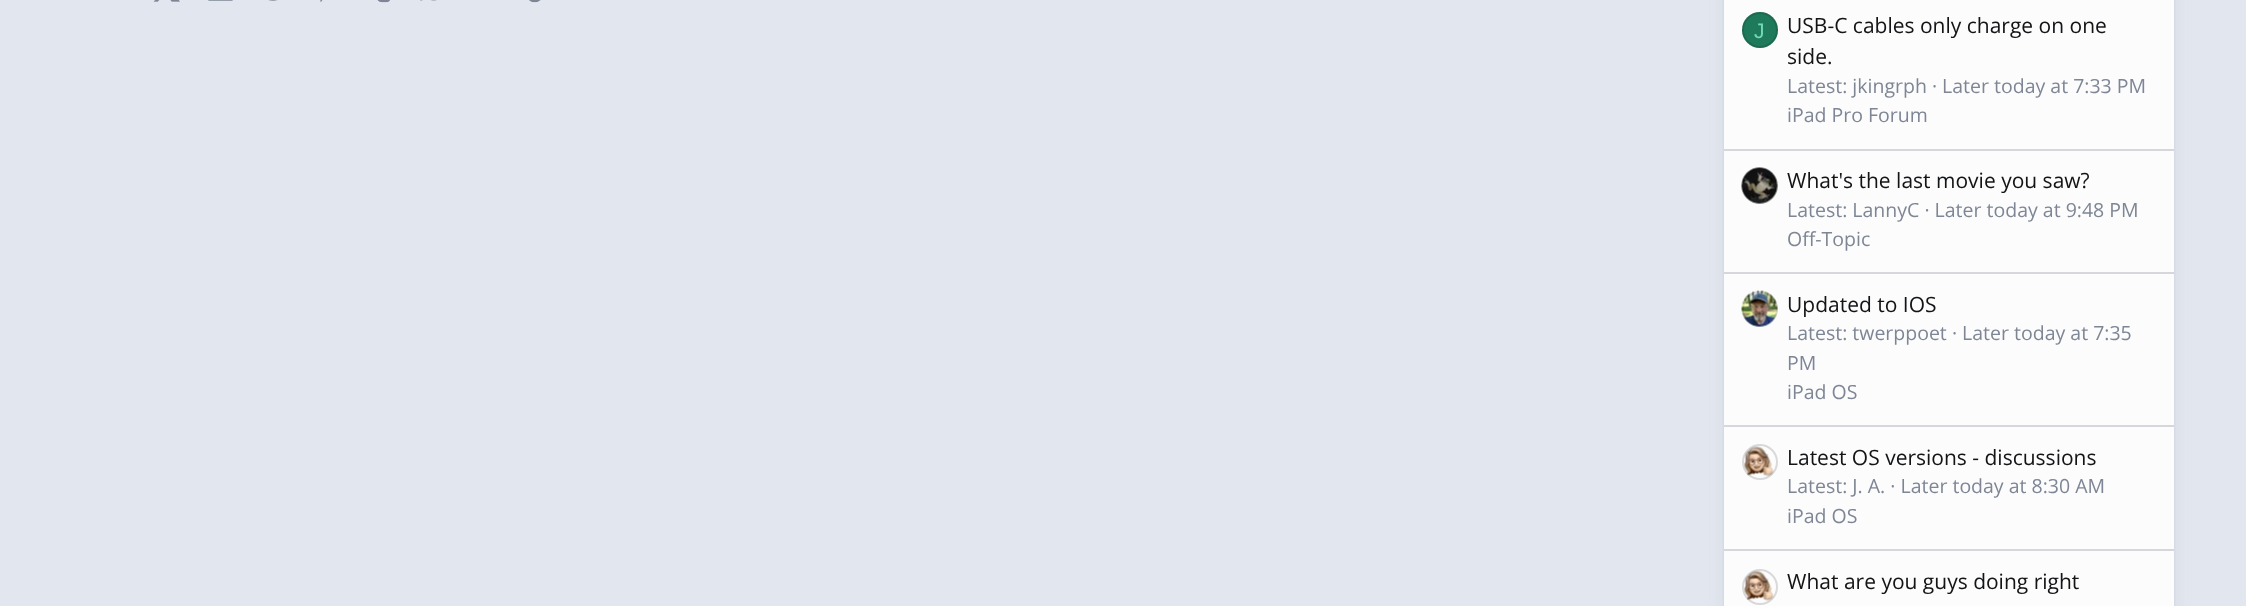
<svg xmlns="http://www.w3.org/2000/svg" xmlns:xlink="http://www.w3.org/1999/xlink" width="2246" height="606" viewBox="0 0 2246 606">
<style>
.cls-1{font:21px Liberation Sans;fill:#70dbb8}
.cls-2{font:21px Open Sans;fill:#121416}
.cls-3{font:19.5px Open Sans;fill:#7e8695}
</style>
<rect width="100%" height="100%" fill="#e2e6ee"/>
<image xlink:href="image0.png" x="153" y="0" width="27" height="2"/>
<image xlink:href="image1.png" x="208" y="0" width="25" height="1"/>
<image xlink:href="image2.png" x="268" y="0" width="10" height="1"/>
<image xlink:href="image3.png" x="320" y="0" width="3" height="2"/>
<image xlink:href="image4.png" x="377" y="0" width="13" height="3"/>
<image xlink:href="image5.png" x="420" y="0" width="17" height="1"/>
<image xlink:href="image6.png" x="529" y="0" width="12" height="3"/>
<rect fill="#7a8fb8" fill-opacity="0.12" filter="blur(7.5px)" x="1724" y="-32" width="450" height="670" rx="9"/>
<rect fill="#7a8fb8" fill-opacity="0.12" filter="blur(1.5px)" x="1724" y="-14" width="450" height="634" rx="9"/>
<rect fill="#fcfcfd" x="1724" y="0" width="450" height="606"/>
<rect fill="#d5d7dd" x="1724" y="149" width="450" height="2"/>
<circle fill="#1f7a5c" cx="1760" cy="30" r="18"/>
<rect fill="#d5d7dd" x="1724" y="272" width="450" height="2"/>
<image xlink:href="image7.png" x="1741" y="167" width="37" height="37"/>
<circle fill="none" stroke="#121416" stroke-opacity="0.15" stroke-width="2" cx="1760" cy="186" r="17"/>
<rect fill="#d5d7dd" x="1724" y="425" width="450" height="2"/>
<image xlink:href="image8.png" x="1741" y="290" width="37" height="37"/>
<circle fill="none" stroke="#121416" stroke-opacity="0.15" stroke-width="2" cx="1760" cy="309" r="17"/>
<rect fill="#d5d7dd" x="1724" y="549" width="450" height="2"/>
<image xlink:href="image9.png" x="1744" y="446" width="30" height="31"/>
<circle fill="none" stroke="#121416" stroke-opacity="0.15" stroke-width="2" cx="1760" cy="462" r="17"/>
<image xlink:href="image10.png" x="1744" y="570" width="30" height="31"/>
<circle fill="none" stroke="#121416" stroke-opacity="0.15" stroke-width="2" cx="1760" cy="587" r="17"/>
<text class="cls-1" x="1754" y="38">J</text>
<circle fill="none" stroke="#121416" stroke-opacity="0.15" stroke-width="2" cx="1760" cy="30" r="17"/>
<text class="cls-2"><tspan x="1787" y="33">USB-C cables only charge on one</tspan><tspan x="1787" y="64">side.</tspan></text>
<text class="cls-3"><tspan x="1787" y="93">Latest: jkingrph · Later today at 7:33 PM</tspan><tspan x="1787" y="122">iPad Pro Forum</tspan></text>
<text class="cls-2" x="1787" y="188">What's the last movie you saw?</text>
<text class="cls-3"><tspan x="1787" y="217">Latest: LannyC · Later today at 9:48 PM</tspan><tspan x="1787" y="246">Off-Topic</tspan></text>
<text class="cls-2" x="1787" y="312">Updated to IOS</text>
<text class="cls-3"><tspan x="1787" y="340">Latest: twerppoet · Later today at 7:35</tspan><tspan x="1787" y="370">PM</tspan><tspan x="1787" y="399">iPad OS</tspan></text>
<text class="cls-2" x="1787" y="465">Latest OS versions - discussions</text>
<text class="cls-3"><tspan x="1787" y="493">Latest: J. A. · Later today at 8:30 AM</tspan><tspan x="1787" y="523">iPad OS</tspan></text>
<text class="cls-2" x="1787" y="589">What are you guys doing right</text>
</svg>
